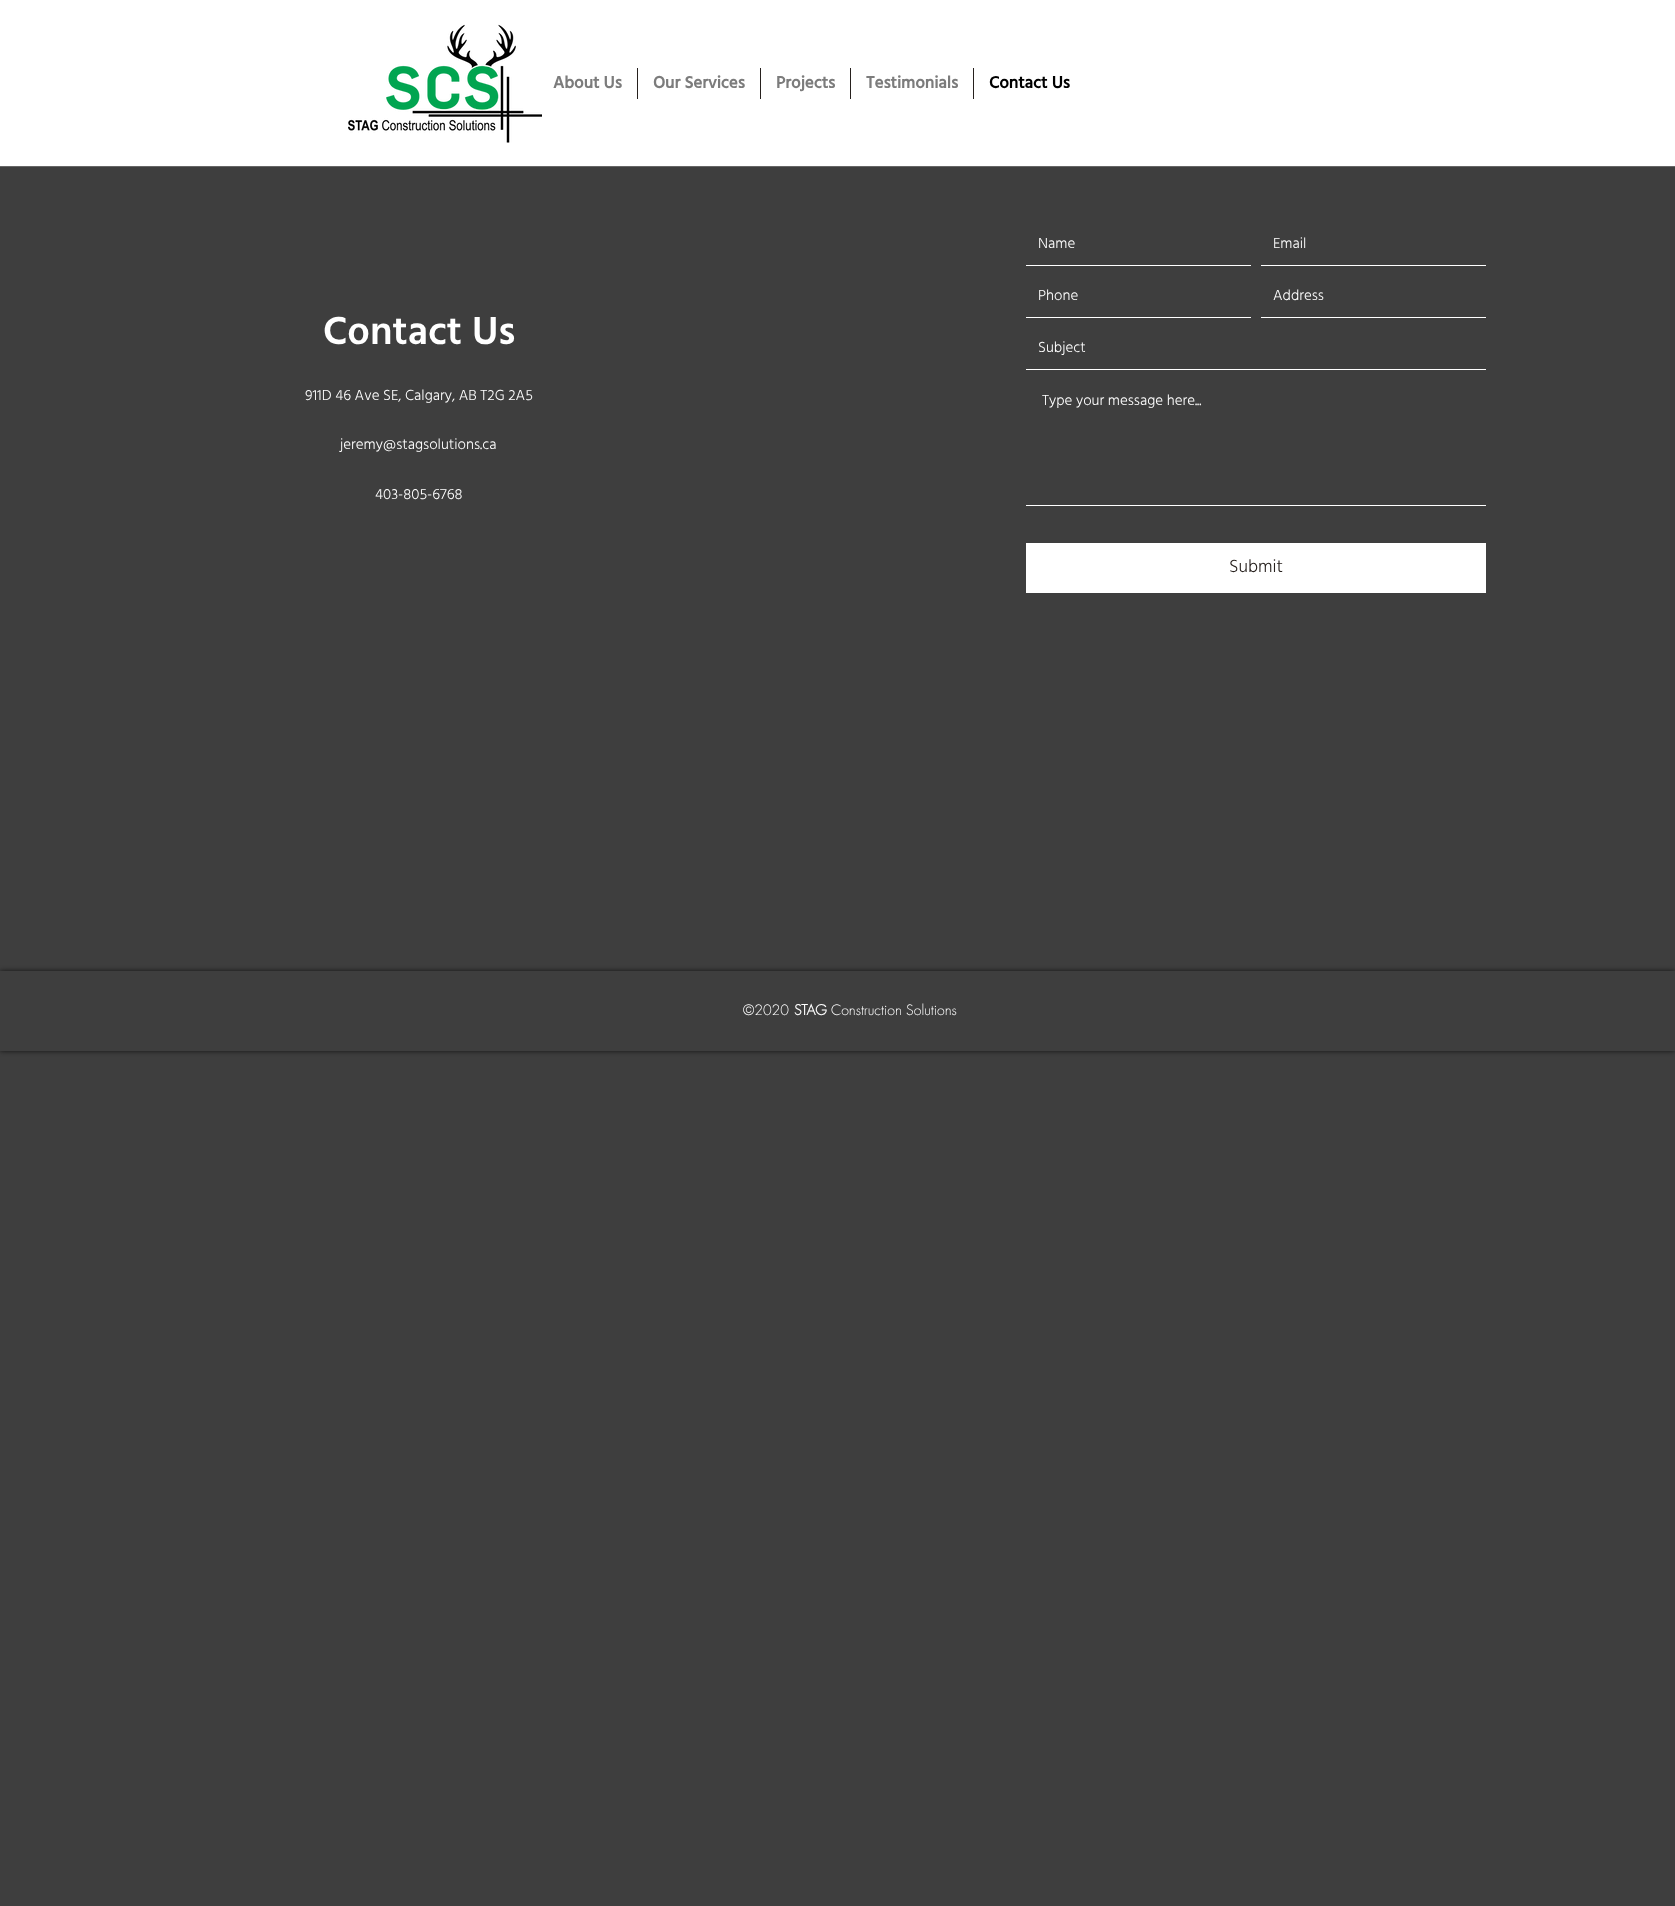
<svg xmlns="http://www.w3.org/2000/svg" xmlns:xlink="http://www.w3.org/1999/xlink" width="1675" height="1906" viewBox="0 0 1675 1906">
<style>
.cls-1{font:bold 17px Hind;fill:#7c7c7c}
.cls-2{font:bold 17px Hind;fill:#000000}
.cls-3{font:600 40px Hind;fill:#ffffff}
.cls-4{font:300 15px Hind;fill:#ffffff}
.cls-5{font:300 18px Hind;fill:#27211e}
.cls-6{font:300 14px futura;fill:#ffffff}
.cls-7{font:bold 14px futura;fill:#ffffff}
</style>
<defs>
<clipPath id="clip1"><path d="M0 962H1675V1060H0ZM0 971H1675V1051H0Z" clip-rule="evenodd"/></clipPath>
</defs>
<rect width="100%" height="100%" fill="#3e3e3e"/>
<rect fill="#ffffff" x="0" y="0" width="1675" height="166"/>
<rect fill="#666666" x="0" y="166" width="1675" height="1"/>
<image xlink:href="image0.png" x="348" y="24" width="194" height="119"/>
<rect fill="#27211e" x="637" y="68" width="1" height="31"/>
<rect fill="#27211e" x="760" y="68" width="1" height="31"/>
<rect fill="#27211e" x="850" y="68" width="1" height="31"/>
<rect fill="#27211e" x="973" y="68" width="1" height="31"/>
<rect fill="#ffffff" x="1026" y="265" width="225" height="1"/>
<rect fill="#ffffff" x="1261" y="265" width="225" height="1"/>
<rect fill="#ffffff" x="1026" y="317" width="225" height="1"/>
<rect fill="#ffffff" x="1261" y="317" width="225" height="1"/>
<rect fill="#ffffff" x="1026" y="369" width="460" height="1"/>
<rect fill="#ffffff" x="1026" y="505" width="460" height="1"/>
<rect fill="#ffffff" x="1026" y="543" width="460" height="50"/>
<g clip-path="url(#clip1)">
<rect fill="#000000" fill-opacity="0.7" filter="blur(2.5px)" x="0" y="971" width="1675" height="80"/>
</g>
<text class="cls-1" x="553" y="88">About Us</text>
<text class="cls-1" x="653" y="88">Our Services</text>
<text class="cls-1" x="776" y="88">Projects</text>
<text class="cls-1" x="866" y="88">Testimonials</text>
<text class="cls-2" x="989" y="88">Contact Us</text>
<text class="cls-3" x="323" y="344">Contact Us</text>
<text class="cls-4" x="305" y="400">911D 46 Ave SE, Calgary, AB T2G 2A5</text>
<text class="cls-4" x="340" y="449">jeremy@stagsolutions.ca</text>
<text class="cls-4" x="375" y="499">403-805-6768</text>
<text class="cls-4" x="1038" y="248">Name</text>
<text class="cls-4" x="1273" y="248">Email</text>
<text class="cls-4" x="1038" y="300">Phone</text>
<text class="cls-4" x="1273" y="300">Address</text>
<text class="cls-4" x="1038" y="352">Subject</text>
<text class="cls-4" x="1042" y="405">Type your message here...</text>
<text class="cls-5" x="1229" y="572">Submit</text>
<text class="cls-6" x="743" y="1015">©2020</text>
<text class="cls-7" x="794" y="1015">STAG</text>
<text class="cls-6" x="831" y="1015">Construction Solutions</text>
</svg>
